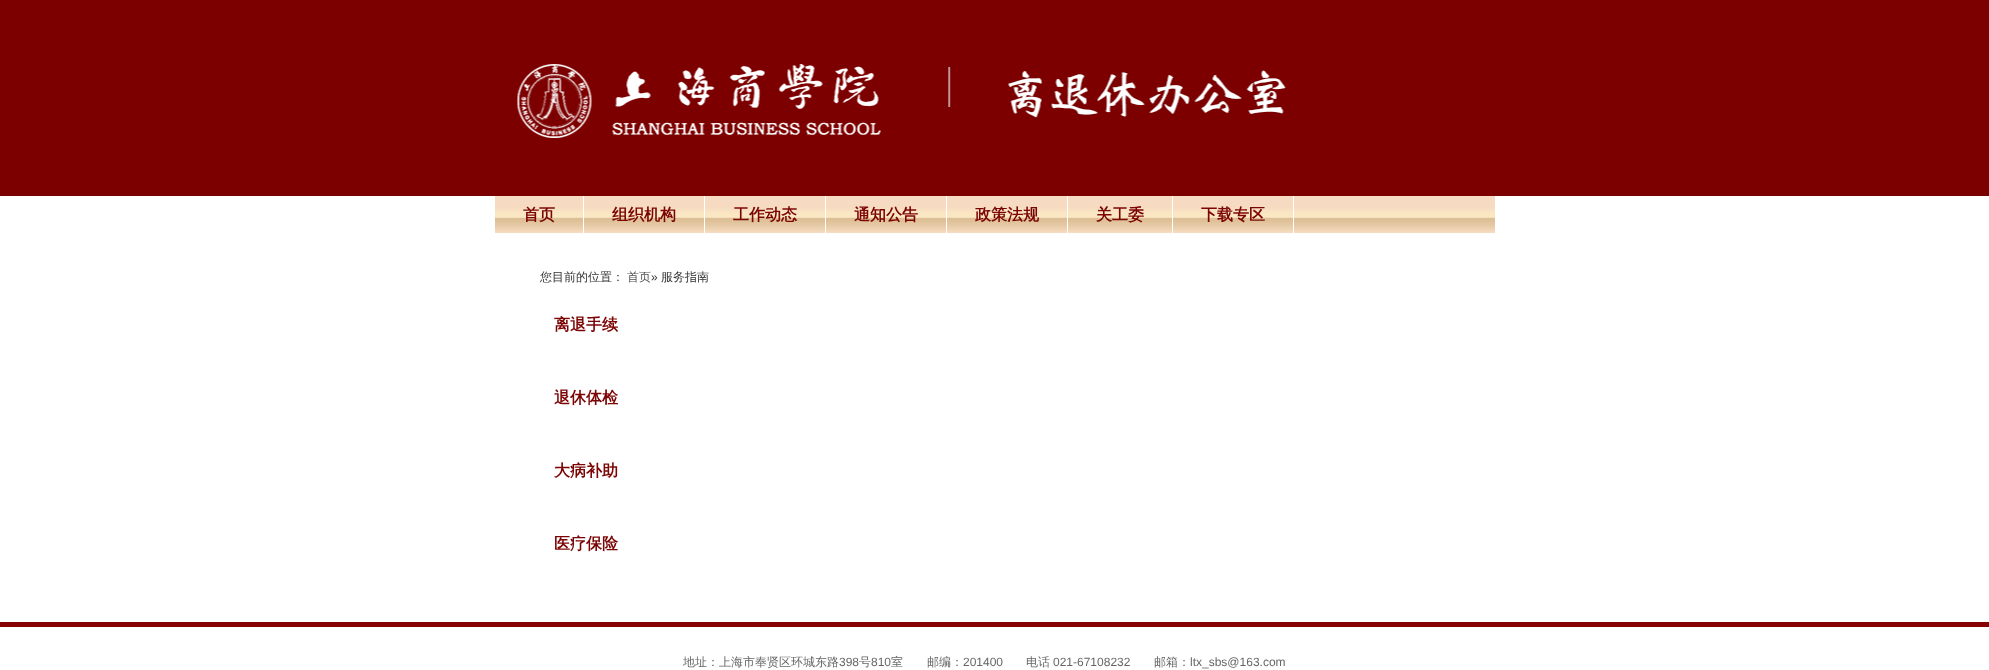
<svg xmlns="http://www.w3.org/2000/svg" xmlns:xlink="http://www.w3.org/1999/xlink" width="1989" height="670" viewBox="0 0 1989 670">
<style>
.cls-1{font:bold 16px WenQuanYi Zen Hei;fill:#7b0404}
.cls-2{font:500 12px WenQuanYi Zen Hei;fill:#333333}
.cls-3{font:500 12px WenQuanYi Zen Hei;fill:#505050}
.cls-4{font:12px Liberation Sans;fill:#333333}
.cls-5{font:500 12px WenQuanYi Zen Hei;fill:#666666}
.cls-6{font:12px Liberation Sans;fill:#666666}
</style>
<rect width="100%" height="100%" fill="#ffffff"/>
<image xlink:href="image0.png" x="0" y="0" width="1989" height="196"/>
<image xlink:href="image1.png" x="495" y="196" width="1000" height="37"/>
<rect fill="#ffffff" x="583" y="196" width="1" height="37"/>
<rect fill="#ffffff" x="704" y="196" width="1" height="37"/>
<rect fill="#ffffff" x="825" y="196" width="1" height="37"/>
<rect fill="#ffffff" x="946" y="196" width="1" height="37"/>
<rect fill="#ffffff" x="1067" y="196" width="1" height="37"/>
<rect fill="#ffffff" x="1172" y="196" width="1" height="37"/>
<rect fill="#ffffff" x="1293" y="196" width="1" height="37"/>
<rect fill="#860101" x="0" y="622" width="1989" height="5"/>
<text class="cls-1" x="523" y="220">首页</text>
<text class="cls-1" x="612" y="220">组织机构</text>
<text class="cls-1" x="733" y="220">工作动态</text>
<text class="cls-1" x="854" y="220">通知公告</text>
<text class="cls-1" x="975" y="220">政策法规</text>
<text class="cls-1" x="1096" y="220">关工委</text>
<text class="cls-1" x="1201" y="220">下载专区</text>
<text class="cls-2" x="540" y="281">您目前的位置：</text>
<text class="cls-3" x="627" y="281">首页</text>
<text class="cls-4" x="651" y="281">»</text>
<text class="cls-2" x="661" y="281">服务指南</text>
<text class="cls-1" x="554" y="330">离退手续</text>
<text class="cls-1" x="554" y="403">退休体检</text>
<text class="cls-1" x="554" y="476">大病补助</text>
<text class="cls-1" x="554" y="549">医疗保险</text>
<text class="cls-5" x="683" y="666">地址：上海市奉贤区环城东路</text>
<text class="cls-6" x="839" y="666">398</text>
<text class="cls-5" x="859" y="666">号</text>
<text class="cls-6" x="871" y="666">810</text>
<text class="cls-5" x="891" y="666">室</text>
<text class="cls-5" x="927" y="666">邮编：</text>
<text class="cls-6" x="963" y="666">201400</text>
<text class="cls-5" x="1026" y="666">电话</text>
<text class="cls-6" x="1053" y="666">021-67108232</text>
<text class="cls-5" x="1154" y="666">邮箱：</text>
<text class="cls-6" x="1190" y="666">ltx_sbs@163.com</text>
</svg>
